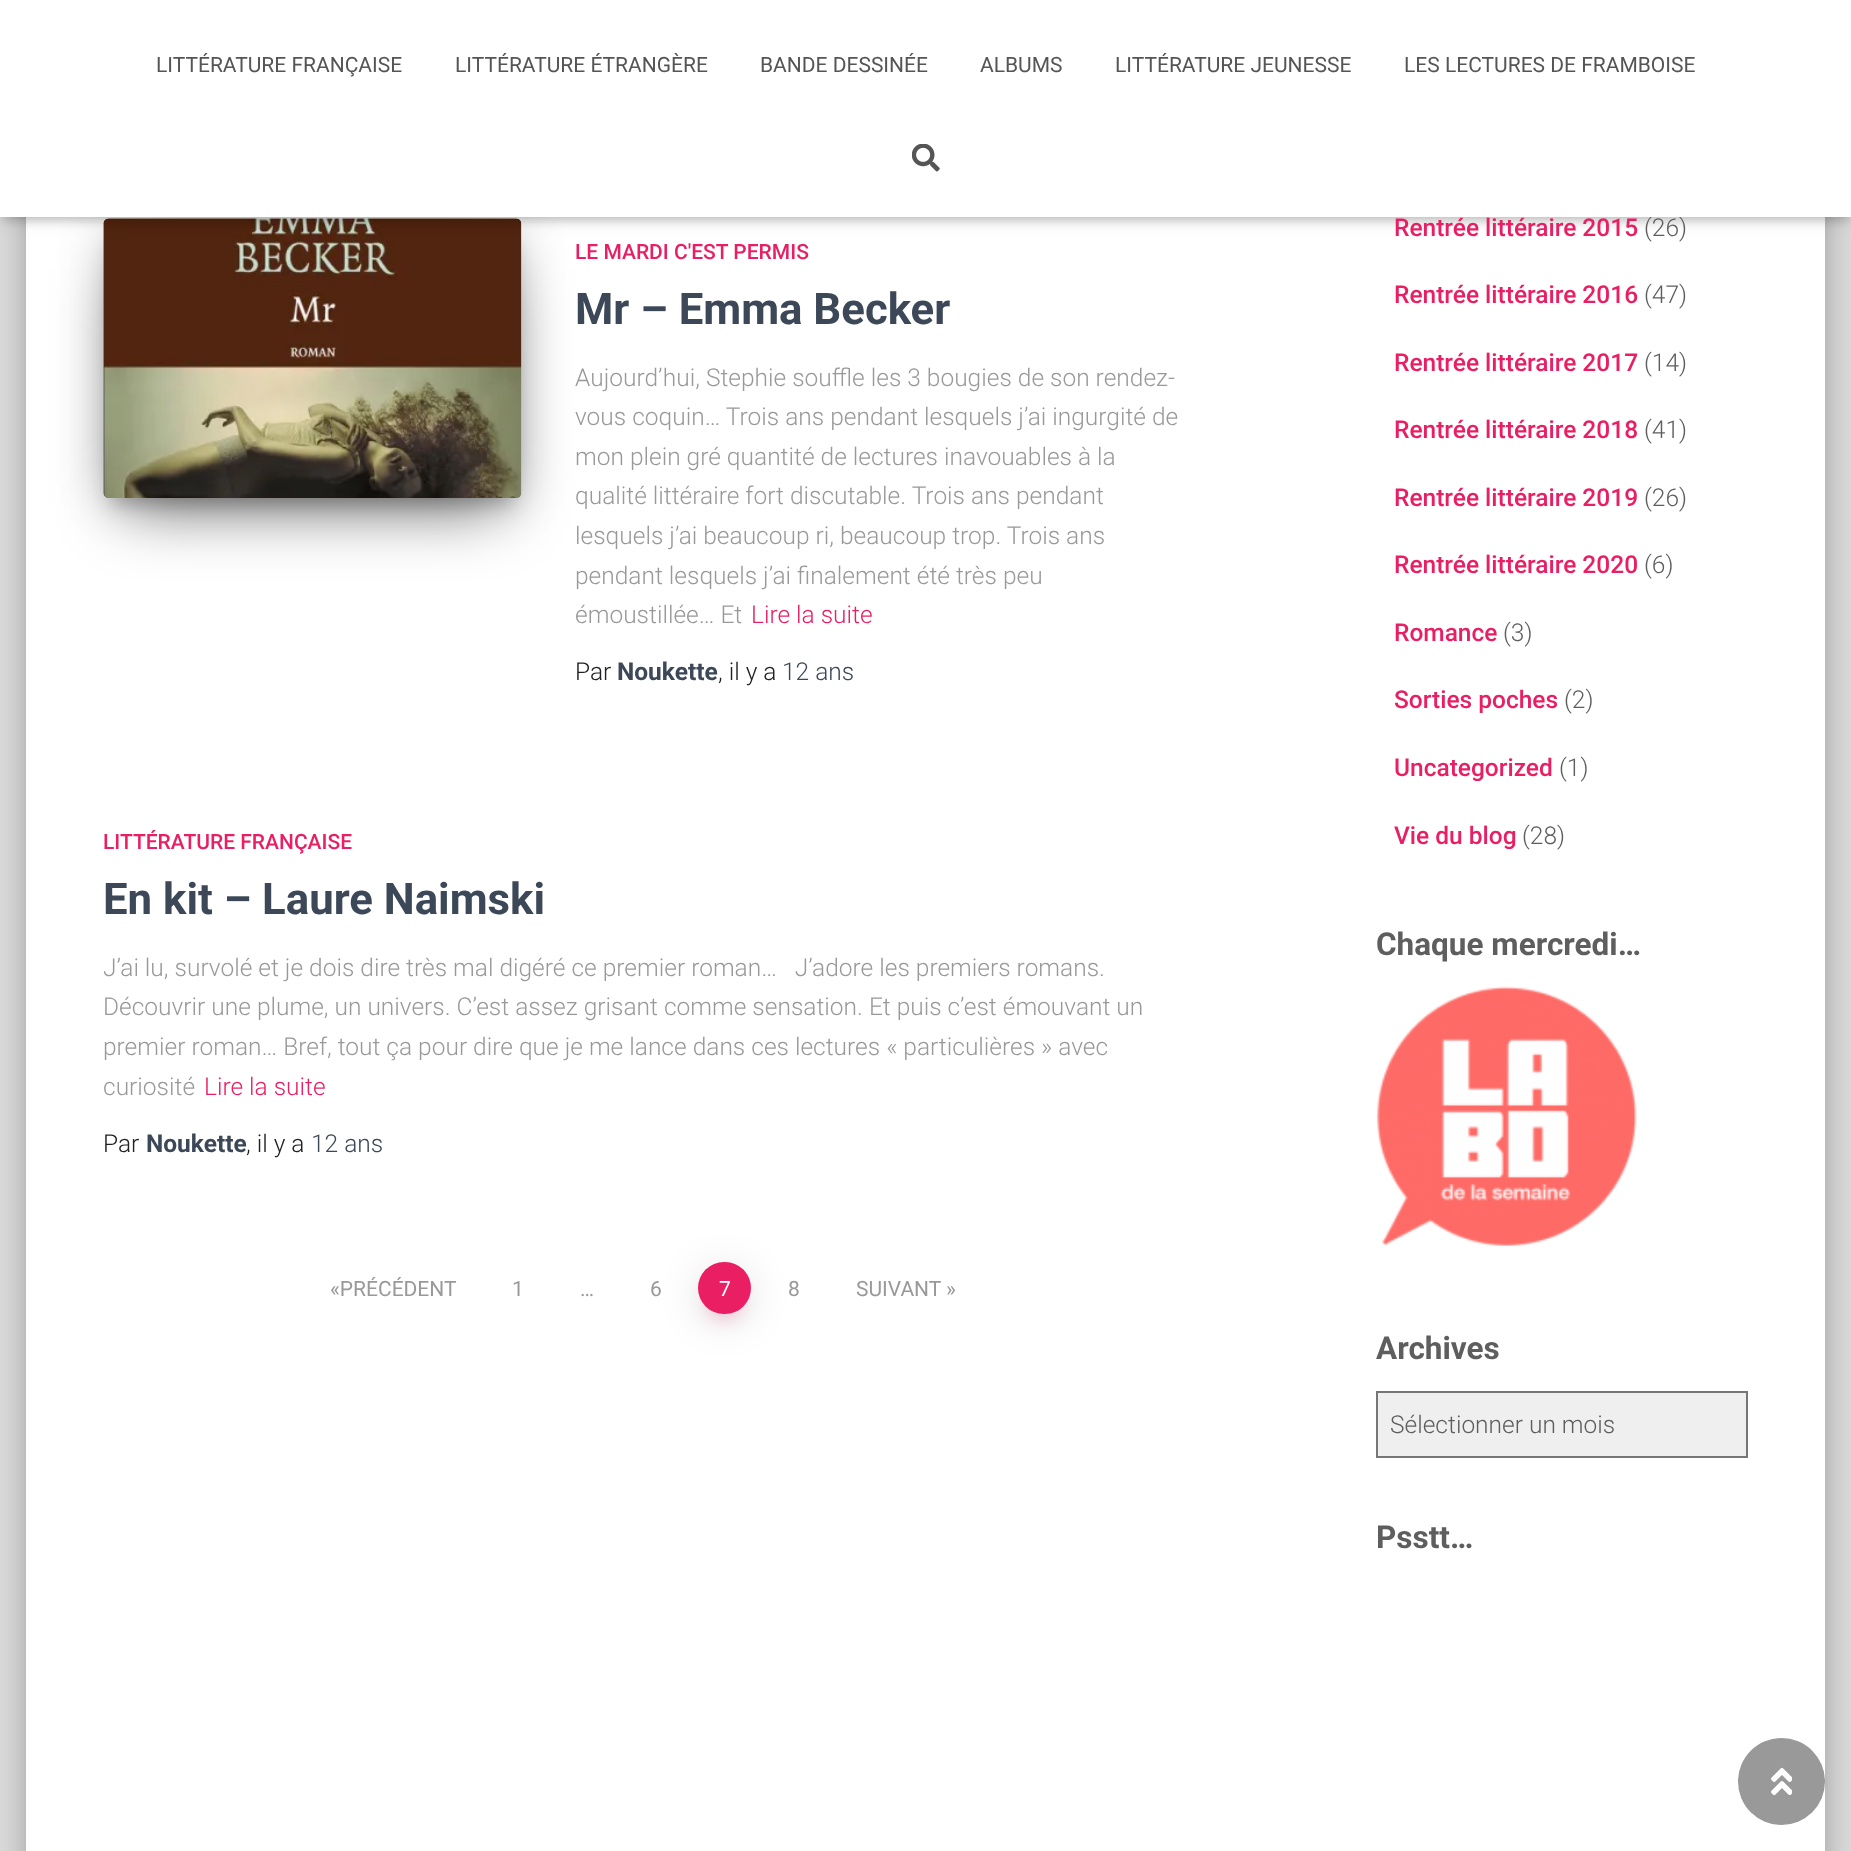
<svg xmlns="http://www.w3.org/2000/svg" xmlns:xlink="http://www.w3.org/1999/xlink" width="1851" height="1851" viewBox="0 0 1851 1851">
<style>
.cls-1{font:500 21px Roboto;fill:#e91e63}
.cls-2{font:bold 43.75px Roboto;fill:#3c4858}
.cls-3{font:300 24.5px Roboto;fill:#999999}
.cls-4{font:300 24.5px Roboto;fill:#e91e63}
.cls-5{font:300 24.5px Roboto;fill:#212121}
.cls-6{font:bold 24.5px Roboto;fill:#3c4858}
.cls-7{font:300 24.5px Roboto;fill:#3c4858}
.cls-8{font:21px Roboto;fill:#999999}
.cls-9{font:21px Roboto;fill:#ffffff}
.cls-10{font:500 24.5px Roboto;fill:#e91e63}
.cls-11{font:300 24.5px Roboto;fill:#5e5e5e}
.cls-12{font:21px Roboto;fill:#555555}
.cls-13{font:bold 31.5px Roboto;fill:#5e5e5e}
</style>
<rect width="100%" height="100%" fill="#e5e5e5"/>
<rect fill="#000000" fill-opacity="0.2" filter="blur(9px)" x="35" y="-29" width="1782" height="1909" rx="2"/>
<rect fill="#000000" fill-opacity="0.12" filter="blur(26px)" x="18" y="-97" width="1816" height="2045" rx="19"/>
<rect fill="#000000" fill-opacity="0.14" filter="blur(21px)" x="23" y="-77" width="1806" height="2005" rx="14"/>
<rect fill="#ffffff" x="26" y="217" width="1799" height="1634"/>
<rect fill="#000000" fill-opacity="0.2" filter="blur(9px)" x="112" y="242" width="401" height="262"/>
<rect fill="#000000" fill-opacity="0.12" filter="blur(22px)" x="103" y="226" width="419" height="280" rx="5"/>
<rect fill="#000000" fill-opacity="0.56" filter="blur(33px)" x="124" y="268" width="377" height="238"/>
<image xlink:href="image1.png" x="103" y="218" width="419" height="280"/>
<rect fill="#000000" fill-opacity="0.1" filter="blur(4.5px)" x="4" y="11" width="1844" height="210"/>
<rect fill="#000000" fill-opacity="0.12" filter="blur(9px)" x="0" y="2" width="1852" height="217"/>
<rect fill="#000000" fill-opacity="0.42" filter="blur(9px)" x="11" y="12" width="1830" height="196"/>
<rect fill="#e91e63" fill-opacity="0.2" filter="blur(9px)" x="707" y="1285" width="35" height="35" rx="17.5"/>
<rect fill="#000000" fill-opacity="0.12" filter="blur(20px)" x="698" y="1269" width="53" height="52" rx="26"/>
<rect fill="#e91e63" x="698" y="1262" width="53" height="52" rx="26"/>
<image xlink:href="image2.png" x="1376" y="986" width="261" height="260"/>
<rect fill="#efefef" stroke="#767676" stroke-width="2" x="1377" y="1392" width="370" height="65"/>
<circle fill="#999999" cx="1781.5" cy="1781.5" r="43.5"/>
<image xlink:href="image3.png" x="1771" y="1767" width="21" height="29"/>
<text class="cls-1" x="575" y="259">LE MARDI C'EST PERMIS</text>
<text class="cls-2" x="575" y="324">Mr – Emma Becker</text>
<text class="cls-3"><tspan x="575" y="386">Aujourd’hui, Stephie souffle les 3 bougies de son rendez-</tspan><tspan x="575" y="425">vous coquin… Trois ans pendant lesquels j’ai ingurgité de</tspan><tspan x="575" y="465">mon plein gré quantité de lectures inavouables à la</tspan><tspan x="575" y="504">qualité littéraire fort discutable. Trois ans pendant</tspan><tspan x="575" y="544">lesquels j’ai beaucoup ri, beaucoup trop. Trois ans</tspan><tspan x="575" y="584">pendant lesquels j’ai finalement été très peu</tspan><tspan x="575" y="623">émoustillée… Et</tspan></text>
<text class="cls-4" x="751" y="623">Lire la suite</text>
<text class="cls-5" x="575" y="680">Par</text>
<text class="cls-6" x="617" y="680">Noukette</text>
<text class="cls-5" x="718" y="680">, il y a</text>
<text class="cls-7" x="782" y="680">12 ans</text>
<text class="cls-1" x="103" y="849">LITTÉRATURE FRANÇAISE</text>
<text class="cls-2" x="103" y="914">En kit – Laure Naimski</text>
<text class="cls-3" xml:space="preserve"><tspan x="103" y="976">J’ai lu, survolé et je dois dire très mal digéré ce premier roman…   J’adore les premiers romans.</tspan><tspan x="103" y="1015">Découvrir une plume, un univers. C’est assez grisant comme sensation. Et puis c’est émouvant un</tspan><tspan x="103" y="1055">premier roman… Bref, tout ça pour dire que je me lance dans ces lectures « particulières » avec</tspan><tspan x="103" y="1095">curiosité</tspan></text>
<text class="cls-4" x="204" y="1095">Lire la suite</text>
<text class="cls-5" x="103" y="1152">Par</text>
<text class="cls-6" x="146" y="1152">Noukette</text>
<text class="cls-5" x="246" y="1152">, il y a</text>
<text class="cls-7" x="311" y="1152">12 ans</text>
<text class="cls-8" x="330" y="1296">«PRÉCÉDENT</text>
<text class="cls-8" x="512" y="1296">1</text>
<text class="cls-8" x="580" y="1296">…</text>
<text class="cls-8" x="650" y="1296">6</text>
<text class="cls-9" x="719" y="1296">7</text>
<text class="cls-8" x="788" y="1296">8</text>
<text class="cls-8" x="856" y="1296">SUIVANT</text>
<text class="cls-8" x="946" y="1296">»</text>
<text class="cls-10" x="1394" y="236">Rentrée littéraire 2015</text>
<text class="cls-11" x="1644" y="236">(26)</text>
<rect fill="#ffffff" x="0" y="0" width="1851" height="217"/>
<image xlink:href="image0.png" x="912" y="144" width="28" height="28"/>
<text class="cls-12" x="1404" y="72">LES LECTURES DE FRAMBOISE</text>
<text class="cls-12" x="1115" y="72">LITTÉRATURE JEUNESSE</text>
<text class="cls-12" x="980" y="72">ALBUMS</text>
<text class="cls-12" x="760" y="72">BANDE DESSINÉE</text>
<text class="cls-12" x="455" y="72">LITTÉRATURE ÉTRANGÈRE</text>
<text class="cls-12" x="156" y="72">LITTÉRATURE FRANÇAISE</text>
<text class="cls-10" x="1394" y="303">Rentrée littéraire 2016</text>
<text class="cls-11" x="1644" y="303">(47)</text>
<text class="cls-10" x="1394" y="371">Rentrée littéraire 2017</text>
<text class="cls-11" x="1644" y="371">(14)</text>
<text class="cls-10" x="1394" y="438">Rentrée littéraire 2018</text>
<text class="cls-11" x="1644" y="438">(41)</text>
<text class="cls-10" x="1394" y="506">Rentrée littéraire 2019</text>
<text class="cls-11" x="1644" y="506">(26)</text>
<text class="cls-10" x="1394" y="573">Rentrée littéraire 2020</text>
<text class="cls-11" x="1644" y="573">(6)</text>
<text class="cls-10" x="1394" y="641">Romance</text>
<text class="cls-11" x="1503" y="641">(3)</text>
<text class="cls-10" x="1394" y="708">Sorties poches</text>
<text class="cls-11" x="1564" y="708">(2)</text>
<text class="cls-10" x="1394" y="776">Uncategorized</text>
<text class="cls-11" x="1559" y="776">(1)</text>
<text class="cls-10" x="1394" y="844">Vie du blog</text>
<text class="cls-11" x="1522" y="844">(28)</text>
<text class="cls-13" x="1376" y="955">Chaque mercredi…</text>
<text class="cls-13" x="1376" y="1359">Archives</text>
<text class="cls-11" x="1390" y="1433">Sélectionner un mois</text>
<text class="cls-13" x="1376" y="1548">Psstt…</text>
</svg>
